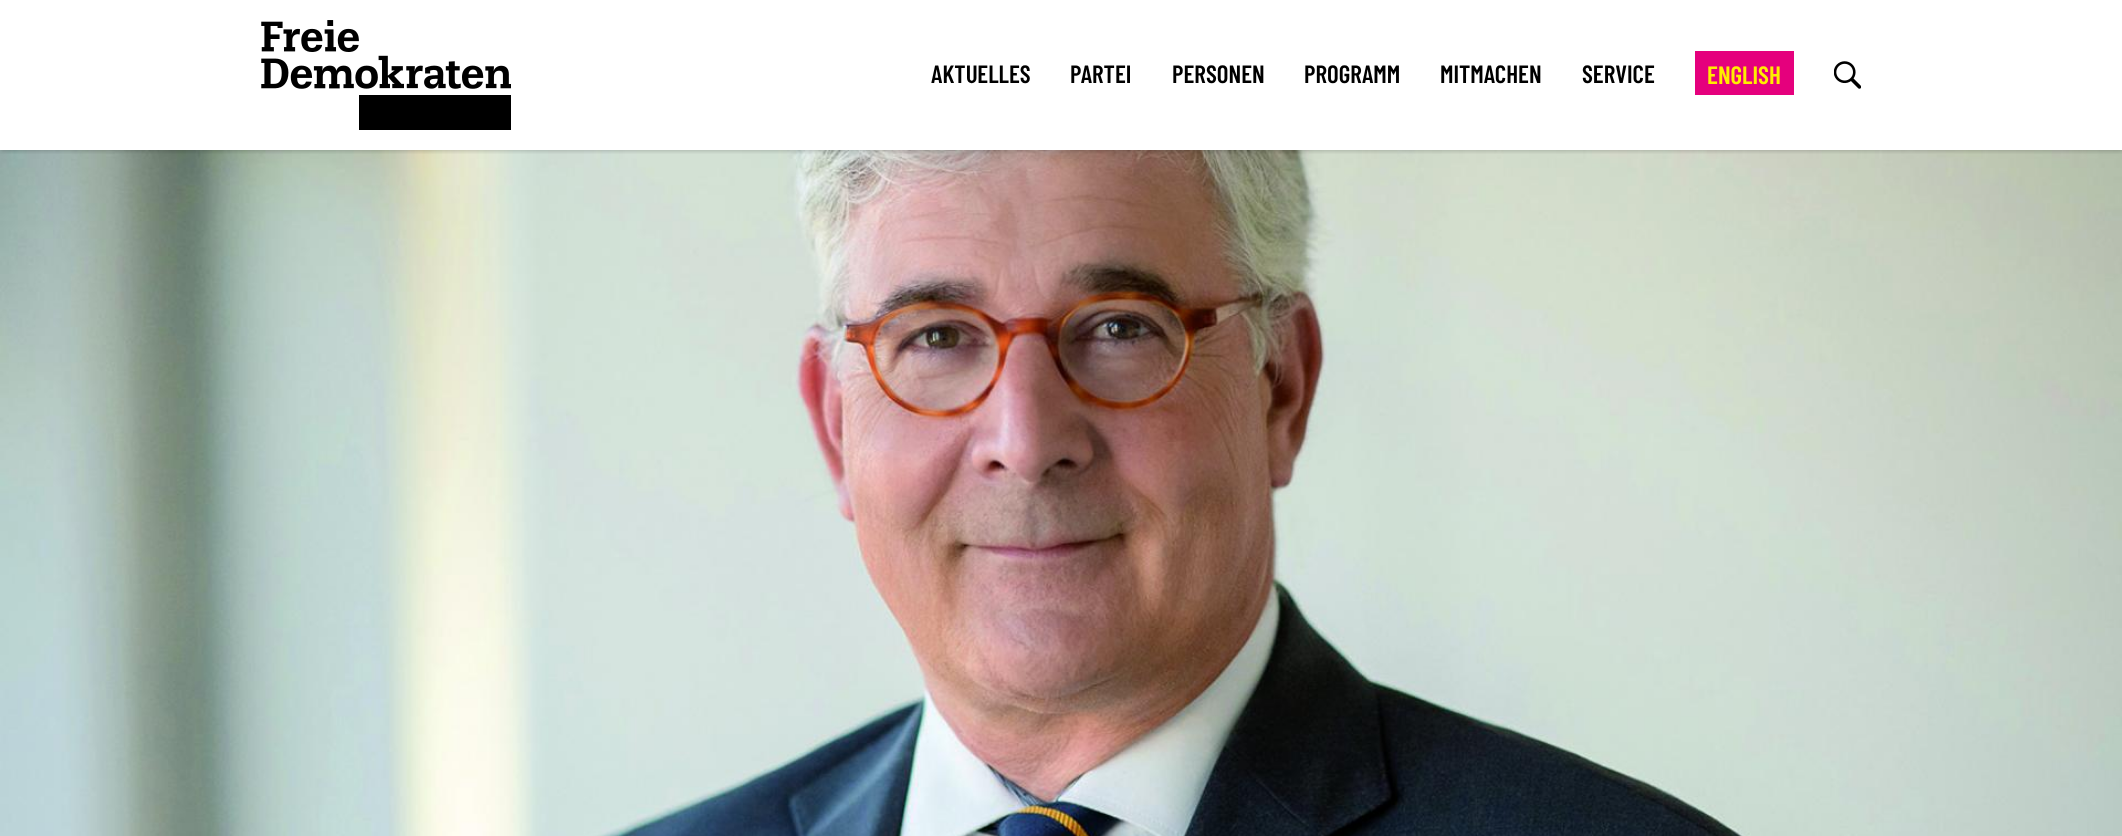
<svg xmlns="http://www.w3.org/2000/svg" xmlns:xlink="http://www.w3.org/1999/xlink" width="2122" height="836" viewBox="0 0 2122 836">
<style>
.cls-1{font:600 25px Barlow Condensed;fill:#000000}
.cls-2{font:600 25px Barlow Condensed;fill:#ffed00}
</style>
<defs>
<clipPath id="clip1"><rect x="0" y="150" width="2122" height="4"/></clipPath>
</defs>
<rect width="100%" height="100%" fill="#ffffff"/>
<image xlink:href="image2.png" x="0" y="150" width="2122" height="686"/>
<g clip-path="url(#clip1)">
<rect fill="#000000" fill-opacity="0.2" filter="blur(2px)" x="1" y="1" width="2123" height="150"/>
</g>
<image xlink:href="image0.png" x="261" y="20" width="250" height="110"/>
<rect fill="#e5007d" x="1695" y="51" width="99" height="44"/>
<image xlink:href="image1.png" x="1834" y="61" width="27" height="28"/>
<text class="cls-1" x="931" y="83">AKTUELLES</text>
<text class="cls-1" x="1070" y="83">PARTEI</text>
<text class="cls-1" x="1172" y="83">PERSONEN</text>
<text class="cls-1" x="1304" y="83">PROGRAMM</text>
<text class="cls-1" x="1440" y="83">MITMACHEN</text>
<text class="cls-1" x="1582" y="83">SERVICE</text>
<text class="cls-2" x="1707" y="84">ENGLISH</text>
</svg>
